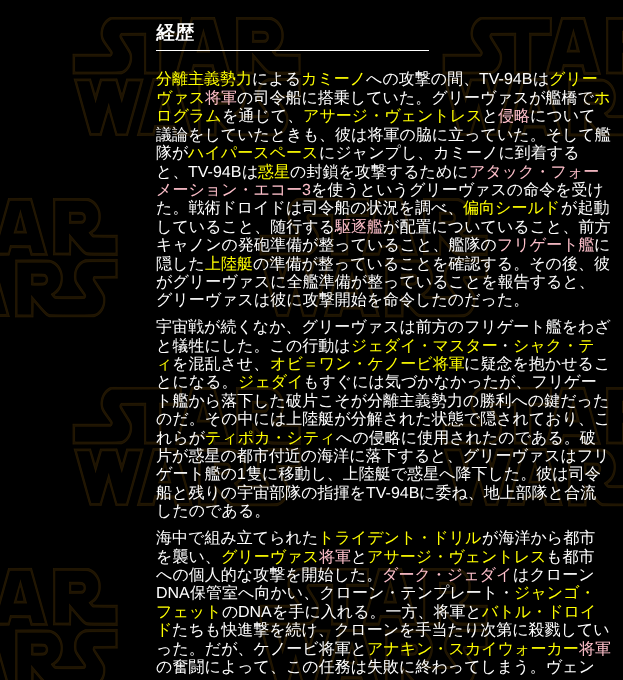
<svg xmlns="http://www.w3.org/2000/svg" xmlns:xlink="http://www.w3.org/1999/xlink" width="623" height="680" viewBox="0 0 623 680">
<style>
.cls-1{font:bold 19px WenQuanYi Zen Hei;fill:#ffffff}
.cls-2{font:500 16px WenQuanYi Zen Hei;fill:#ffff00}
.cls-3{font:500 16px WenQuanYi Zen Hei;fill:#ffffff}
.cls-4{font:16px Liberation Sans;fill:#ffffff}
.cls-5{font:500 16px WenQuanYi Zen Hei;fill:#ffc0cb}
.cls-6{font:16px Liberation Sans;fill:#ffc0cb}
</style>
<rect width="100%" height="100%" fill="#000000"/>
<image xlink:href="image0.png" x="0" y="17" width="623" height="663"/>
<rect fill="#ffffff" x="156" y="50" width="273" height="1"/>
<text class="cls-1" x="156" y="39">経歴</text>
<text class="cls-2" x="156" y="84">分離主義勢力</text>
<text class="cls-3" x="252" y="84">による</text>
<text class="cls-2" x="301" y="84">カミーノ</text>
<text class="cls-3" x="366" y="84">への攻撃の間、</text>
<text class="cls-4" x="479" y="84">TV-94B</text>
<text class="cls-3" x="533" y="84">は</text>
<text class="cls-2" x="549" y="84">グリー</text>
<text class="cls-2" x="156" y="103">ヴァス</text>
<text class="cls-5" x="205" y="103">将軍</text>
<text class="cls-3" x="237" y="103">の司令船に搭乗していた。グリーヴァスが艦橋で</text>
<text class="cls-2" x="594" y="103">ホ</text>
<text class="cls-2" x="156" y="121">ログラム</text>
<text class="cls-3" x="222" y="121">を通じて、</text>
<text class="cls-2" x="303" y="121">アサージ・ヴェントレス</text>
<text class="cls-3" x="482" y="121">と</text>
<text class="cls-5" x="498" y="121">侵略</text>
<text class="cls-3" x="530" y="121">について</text>
<text class="cls-3"><tspan x="156" y="140">議論をしていたときも、彼は将軍の脇に立っていた。そして艦</tspan><tspan x="156" y="158">隊が</tspan></text>
<text class="cls-2" x="188" y="158">ハイパースペース</text>
<text class="cls-3" x="319" y="158">にジャンプし、カミーノに到着する</text>
<text class="cls-3" x="156" y="177">と、</text>
<text class="cls-4" x="188" y="177">TV-94B</text>
<text class="cls-3" x="242" y="177">は</text>
<text class="cls-2" x="258" y="177">惑星</text>
<text class="cls-3" x="290" y="177">の封鎖を攻撃するために</text>
<text class="cls-5" x="469" y="177">アタック・フォー</text>
<text class="cls-5" x="156" y="195">メーション・エコー</text>
<text class="cls-6" x="302" y="195">3</text>
<text class="cls-3" x="311" y="195">を使うというグリーヴァスの命令を受け</text>
<text class="cls-3" x="156" y="213">た。戦術ドロイドは司令船の状況を調べ、</text>
<text class="cls-2" x="463" y="213">偏向シールド</text>
<text class="cls-3" x="561" y="213">が起動</text>
<text class="cls-3" x="156" y="232">していること、随行する</text>
<text class="cls-5" x="335" y="232">駆逐艦</text>
<text class="cls-3" x="383" y="232">が配置についていること、前方</text>
<text class="cls-3" x="156" y="250">キャノンの発砲準備が整っていること、艦隊の</text>
<text class="cls-5" x="497" y="250">フリゲート艦</text>
<text class="cls-3" x="594" y="250">に</text>
<text class="cls-3" x="156" y="269">隠した</text>
<text class="cls-2" x="205" y="269">上陸艇</text>
<text class="cls-3" x="253" y="269">の準備が整っていることを確認する。その後、彼</text>
<text class="cls-3"><tspan x="156" y="287">がグリーヴァスに全艦準備が整っていることを報告すると、</tspan><tspan x="156" y="305">グリーヴァスは彼に攻撃開始を命令したのだった。</tspan><tspan x="156" y="332">宇宙戦が続くなか、グリーヴァスは前方のフリゲート艦をわざ</tspan><tspan x="156" y="351">と犠牲にした。この行動は</tspan></text>
<text class="cls-2" x="351" y="351">ジェダイ・マスター</text>
<text class="cls-3" x="497" y="351">・</text>
<text class="cls-2" x="513" y="351">シャク・テ</text>
<text class="cls-2" x="156" y="369">ィ</text>
<text class="cls-3" x="172" y="369">を混乱させ、</text>
<text class="cls-2" x="270" y="369">オビ＝ワン・ケノービ将軍</text>
<text class="cls-3" x="464" y="369">に疑念を抱かせるこ</text>
<text class="cls-3" x="156" y="387">とになる。</text>
<text class="cls-2" x="238" y="387">ジェダイ</text>
<text class="cls-3" x="303" y="387">もすぐには気づかなかったが、フリゲー</text>
<text class="cls-3"><tspan x="156" y="406">ト艦から落下した破片こそが分離主義勢力の勝利への鍵だった</tspan><tspan x="156" y="424">のだ。その中には上陸艇が分解された状態で隠されており、こ</tspan><tspan x="156" y="443">れらが</tspan></text>
<text class="cls-2" x="205" y="443">ティポカ・シティ</text>
<text class="cls-3" x="336" y="443">への侵略に使用されたのである。破</text>
<text class="cls-3"><tspan x="156" y="461">片が惑星の都市付近の海洋に落下すると、グリーヴァスはフリ</tspan><tspan x="156" y="479">ゲート艦の</tspan></text>
<text class="cls-4" x="237" y="479">1</text>
<text class="cls-3" x="246" y="479">隻に移動し、上陸艇で惑星へ降下した。彼は司令</text>
<text class="cls-3" x="156" y="498">船と残りの宇宙部隊の指揮を</text>
<text class="cls-4" x="366" y="498">TV-94B</text>
<text class="cls-3" x="419" y="498">に委ね、地上部隊と合流</text>
<text class="cls-3"><tspan x="156" y="516">したのである。</tspan><tspan x="156" y="543">海中で組み立てられた</tspan></text>
<text class="cls-2" x="318" y="543">トライデント・ドリル</text>
<text class="cls-3" x="482" y="543">が海洋から都市</text>
<text class="cls-3" x="156" y="562">を襲い、</text>
<text class="cls-2" x="221" y="562">グリーヴァス</text>
<text class="cls-5" x="319" y="562">将軍</text>
<text class="cls-3" x="351" y="562">と</text>
<text class="cls-2" x="367" y="562">アサージ・ヴェントレス</text>
<text class="cls-3" x="546" y="562">も都市</text>
<text class="cls-3" x="156" y="580">への個人的な攻撃を開始した。</text>
<text class="cls-5" x="382" y="580">ダーク・ジェダイ</text>
<text class="cls-3" x="513" y="580">はクローン</text>
<text class="cls-4" x="156" y="598">DNA</text>
<text class="cls-3" x="190" y="598">保管室へ向かい、クローン・テンプレート・</text>
<text class="cls-2" x="514" y="598">ジャンゴ・</text>
<text class="cls-2" x="156" y="617">フェット</text>
<text class="cls-3" x="222" y="617">の</text>
<text class="cls-4" x="238" y="617">DNA</text>
<text class="cls-3" x="272" y="617">を手に入れる。一方、将軍と</text>
<text class="cls-2" x="482" y="617">バトル・ドロイ</text>
<text class="cls-2" x="156" y="635">ド</text>
<text class="cls-3" x="172" y="635">たちも快進撃を続け、クローンを手当たり次第に殺戮してい</text>
<text class="cls-3" x="156" y="654">った。だが、ケノービ将軍と</text>
<text class="cls-2" x="367" y="654">アナキン・スカイウォーカー</text>
<text class="cls-5" x="579" y="654">将軍</text>
<text class="cls-3" x="156" y="672">の奮闘によって、この任務は失敗に終わってしまう。ヴェン</text>
</svg>
